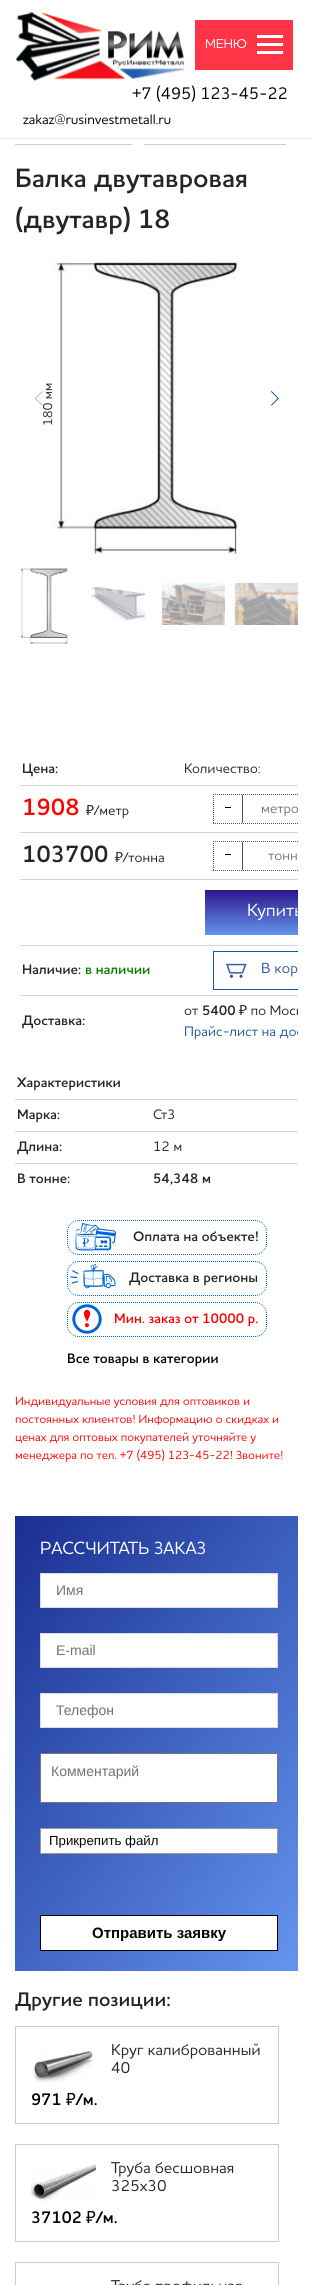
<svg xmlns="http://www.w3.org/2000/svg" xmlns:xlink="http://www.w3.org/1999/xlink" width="313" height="2285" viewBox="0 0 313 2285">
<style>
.cls-1{font:14px Noto Sans;fill:#252525}
.cls-2{font:14px Liberation Sans;fill:#757575}
.cls-3{font:13.25px Liberation Sans;fill:#000000}
.cls-4{font:bold 15px Liberation Sans;fill:#000000}
.cls-5{font:17px Noto Sans;fill:#000000}
</style>
<defs>
<clipPath id="clip1"><rect x="15" y="241" width="283" height="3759"/></clipPath>
<linearGradient id="g1" gradientUnits="userSpaceOnUse" x1="275" y1="845" x2="275" y2="935"><stop offset="0" stop-color="#386ac5"/><stop offset="0.5" stop-color="#2e168d"/><stop offset="1" stop-color="#6495ed"/></linearGradient>
<linearGradient id="g2" gradientUnits="userSpaceOnUse" x1="-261" y1="985" x2="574" y2="1592"><stop offset="0" stop-color="#386ac5"/><stop offset="0.5" stop-color="#162a8d"/><stop offset="1" stop-color="#6495ed"/></linearGradient>
<clipPath id="clip2"><rect x="66" y="2093" width="10" height="15"/></clipPath>
<clipPath id="clip3"><rect x="86" y="2211" width="10" height="15"/></clipPath>
</defs>
<rect width="100%" height="100%" fill="#ffffff"/>
<rect fill="#ebebeb" x="0" y="138" width="313" height="1"/>
<image xlink:href="image0.png" x="15" y="7" width="170" height="74"/>
<image xlink:href="image1.png" x="132" y="85" width="155" height="17"/>
<image xlink:href="image2.png" x="23" y="114" width="148" height="11"/>
<rect fill="#ff3446" x="195" y="20" width="98" height="50"/>
<image xlink:href="image3.png" x="205" y="39" width="42" height="10"/>
<rect fill="#ffffff" x="257" y="43" width="26" height="3"/>
<rect fill="#ffffff" x="257" y="35" width="26" height="3"/>
<rect fill="#ffffff" x="257" y="51" width="26" height="3"/>
<rect fill="#cccccc" x="15" y="144" width="117" height="1"/>
<rect fill="#cccccc" x="144" y="144" width="142" height="1"/>
<image xlink:href="image4.png" x="16" y="168" width="231" height="26"/>
<image xlink:href="image5.png" x="16" y="206" width="153" height="29"/>
<image xlink:href="image6.png" x="35" y="391" width="8" height="15"/>
<image xlink:href="image7.png" x="43" y="383" width="10" height="42"/>
<image xlink:href="image8.png" x="53" y="259" width="188" height="295"/>
<image xlink:href="image9.png" x="271" y="391" width="8" height="15"/>
<image xlink:href="image10.png" x="20" y="568" width="48" height="76"/>
<image xlink:href="image11.png" x="91" y="587" width="55" height="34"/>
<image xlink:href="image12.png" x="161" y="583" width="64" height="42"/>
<image xlink:href="image13.png" x="234" y="582" width="64" height="43"/>
<rect fill="#d7d7d7" x="20" y="785" width="278" height="1"/>
<image xlink:href="image14.png" x="23" y="763" width="35" height="14"/>
<image xlink:href="image15.png" x="185" y="763" width="75" height="11"/>
<rect fill="#d7d7d7" x="20" y="832" width="278" height="1"/>
<image xlink:href="image16.png" x="24" y="798" width="55" height="18"/>
<image xlink:href="image17.png" x="93" y="805" width="36" height="14"/>
<g clip-path="url(#clip1)">
<path fill="none" stroke="#555555" stroke-dasharray="1 1" d="M213 794.5H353"/>
<path fill="none" stroke="#555555" stroke-dasharray="1 1" d="M213 823.5H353"/>
</g>
<path fill="none" stroke="#555555" stroke-dasharray="1 1" d="M213.5 794V824"/>
<rect fill="#555555" x="242" y="795" width="1" height="28"/>
<rect fill="#000000" x="225" y="807" width="6" height="1"/>
<image xlink:href="image18.png" x="262" y="806" width="36" height="10"/>
<rect fill="#d7d7d7" x="20" y="879" width="278" height="1"/>
<image xlink:href="image19.png" x="24" y="845" width="84" height="18"/>
<image xlink:href="image20.png" x="122" y="852" width="42" height="11"/>
<g clip-path="url(#clip1)">
<path fill="none" stroke="#555555" stroke-dasharray="1 1" d="M213 841.5H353"/>
<path fill="none" stroke="#555555" stroke-dasharray="1 1" d="M213 870.5H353"/>
</g>
<path fill="none" stroke="#555555" stroke-dasharray="1 1" d="M213.5 841V871"/>
<rect fill="#555555" x="242" y="842" width="1" height="28"/>
<rect fill="#000000" x="225" y="854" width="6" height="1"/>
<image xlink:href="image21.png" x="268" y="853" width="29" height="8"/>
<rect fill="#d7d7d7" x="20" y="945" width="278" height="1"/>
<rect fill="url(#g1)" x="205" y="890" width="93" height="45"/>
<image xlink:href="image22.png" x="248" y="903" width="50" height="18"/>
<rect fill="#d7d7d7" x="20" y="995" width="278" height="1"/>
<image xlink:href="image23.png" x="23" y="964" width="58" height="11"/>
<image xlink:href="image24.png" x="85" y="967" width="65" height="8"/>
<g clip-path="url(#clip1)">
<rect fill="none" stroke="#1a56a2" x="213.5" y="951.5" width="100" height="38"/>
</g>
<image xlink:href="image25.png" x="226" y="963" width="21" height="15"/>
<image xlink:href="image26.png" x="262" y="962" width="36" height="15"/>
<image xlink:href="image27.png" x="184" y="1008" width="15" height="8"/>
<image xlink:href="image28.png" x="203" y="1005" width="32" height="11"/>
<image xlink:href="image29.png" x="251" y="1005" width="47" height="11"/>
<image xlink:href="image30.png" x="185" y="1025" width="113" height="15"/>
<image xlink:href="image31.png" x="22" y="1015" width="63" height="14"/>
<rect fill="#d7d7d7" x="15" y="1099" width="283" height="1"/>
<image xlink:href="image32.png" x="17" y="1077" width="103" height="14"/>
<rect fill="#d7d7d7" x="15" y="1131" width="283" height="1"/>
<image xlink:href="image33.png" x="18" y="1109" width="42" height="14"/>
<image xlink:href="image34.png" x="153" y="1109" width="21" height="11"/>
<rect fill="#d7d7d7" x="15" y="1163" width="283" height="1"/>
<image xlink:href="image35.png" x="17" y="1141" width="45" height="14"/>
<image xlink:href="image36.png" x="154" y="1141" width="28" height="10"/>
<image xlink:href="image37.png" x="18" y="1173" width="52" height="11"/>
<image xlink:href="image38.png" x="154" y="1173" width="57" height="12"/>
<path fill="none" stroke="#0167d5" stroke-dasharray="1 1" d="M79 1220.5H255C261.5 1220.5 266.5 1225.5 266.5 1232V1243C266.5 1249.5 261.5 1254.5 255 1254.5H79C72.5 1254.5 67.5 1249.5 67.5 1243V1232C67.5 1225.5 72.5 1220.5 79 1220.5Z"/>
<image xlink:href="image39.png" x="75" y="1223" width="42" height="28"/>
<image xlink:href="image40.png" x="133" y="1231" width="125" height="11"/>
<path fill="none" stroke="#0167d5" stroke-dasharray="1 1" d="M79 1261.5H255C261.5 1261.5 266.5 1266.5 266.5 1273V1284C266.5 1290.5 261.5 1295.5 255 1295.5H79C72.5 1295.5 67.5 1290.5 67.5 1284V1273C67.5 1266.5 72.5 1261.5 79 1261.5Z"/>
<image xlink:href="image41.png" x="70" y="1264" width="46" height="25"/>
<image xlink:href="image42.png" x="129" y="1272" width="129" height="14"/>
<path fill="none" stroke="#0167d5" stroke-dasharray="1 1" d="M79 1302.5H255C261.5 1302.5 266.5 1307.5 266.5 1314V1325C266.5 1331.5 261.5 1336.5 255 1336.5H79C72.5 1336.5 67.5 1331.5 67.5 1325V1314C67.5 1307.5 72.5 1302.5 79 1302.5Z"/>
<image xlink:href="image43.png" x="72" y="1304" width="30" height="30"/>
<image xlink:href="image44.png" x="115" y="1313" width="143" height="14"/>
<image xlink:href="image45.png" x="68" y="1353" width="150" height="14"/>
<image xlink:href="image46.png" x="15" y="1396" width="235" height="12"/>
<image xlink:href="image47.png" x="15" y="1414" width="264" height="12"/>
<image xlink:href="image48.png" x="15" y="1432" width="241" height="12"/>
<image xlink:href="image49.png" x="15" y="1449" width="268" height="13"/>
<rect fill="url(#g2)" x="15" y="1516" width="283" height="455"/>
<image xlink:href="image50.png" x="41" y="1541" width="164" height="14"/>
<rect fill="#ffffff" stroke="#dcdcdc" x="40.5" y="1573.5" width="237" height="34"/>
<rect fill="#ffffff" stroke="#dcdcdc" x="40.5" y="1633.5" width="237" height="34"/>
<rect fill="#ffffff" stroke="#dcdcdc" x="40.5" y="1693.5" width="237" height="34"/>
<rect fill="#ffffff" stroke="#767676" x="40.5" y="1753.5" width="237" height="49"/>
<rect fill="#ffffff" stroke="#999999" x="40.5" y="1828.5" width="237" height="25"/>
<rect fill="#ffffff" stroke="#000000" x="40.5" y="1915.5" width="237" height="35"/>
<image xlink:href="image51.png" x="15" y="1992" width="155" height="19"/>
<rect fill="none" stroke="#cccccc" x="15.5" y="2026.5" width="263" height="97"/>
<image xlink:href="image52.png" x="32" y="2051" width="62" height="32"/>
<image xlink:href="image53.png" x="112" y="2043" width="148" height="16"/>
<image xlink:href="image54.png" x="111" y="2062" width="19" height="12"/>
<image xlink:href="image55.png" x="32" y="2093" width="29" height="13"/>
<image xlink:href="image56.png" x="75" y="2093" width="22" height="13"/>
<rect fill="none" stroke="#cccccc" x="15.5" y="2144.5" width="263" height="97"/>
<image xlink:href="image57.png" x="31" y="2164" width="65" height="37"/>
<image xlink:href="image58.png" x="111" y="2162" width="123" height="15"/>
<image xlink:href="image59.png" x="112" y="2180" width="54" height="12"/>
<image xlink:href="image60.png" x="32" y="2211" width="49" height="13"/>
<image xlink:href="image56.png" x="95" y="2211" width="22" height="13"/>
<rect fill="none" stroke="#cccccc" x="15.5" y="2262.5" width="263" height="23"/>
<image xlink:href="image61.png" x="111" y="2280" width="131" height="5"/>
<text class="cls-1" x="86" y="815">₽</text>
<text class="cls-1" x="115" y="862">₽</text>
<text class="cls-1" x="239" y="1015">₽</text>
<text class="cls-2" x="56" y="1595">Имя</text>
<text class="cls-2" x="56" y="1655">E-mail</text>
<text class="cls-2" x="56" y="1715">Телефон</text>
<text class="cls-2" x="51" y="1776">Комментарий</text>
<text class="cls-3" x="49" y="1845">Прикрепить файл</text>
<text class="cls-4" x="92" y="1938">Отправить заявку</text>
<g clip-path="url(#clip2)">
<text class="cls-5" x="66" y="2105">₽</text>
</g>
<g clip-path="url(#clip3)">
<text class="cls-5" x="86" y="2223">₽</text>
</g>
</svg>
